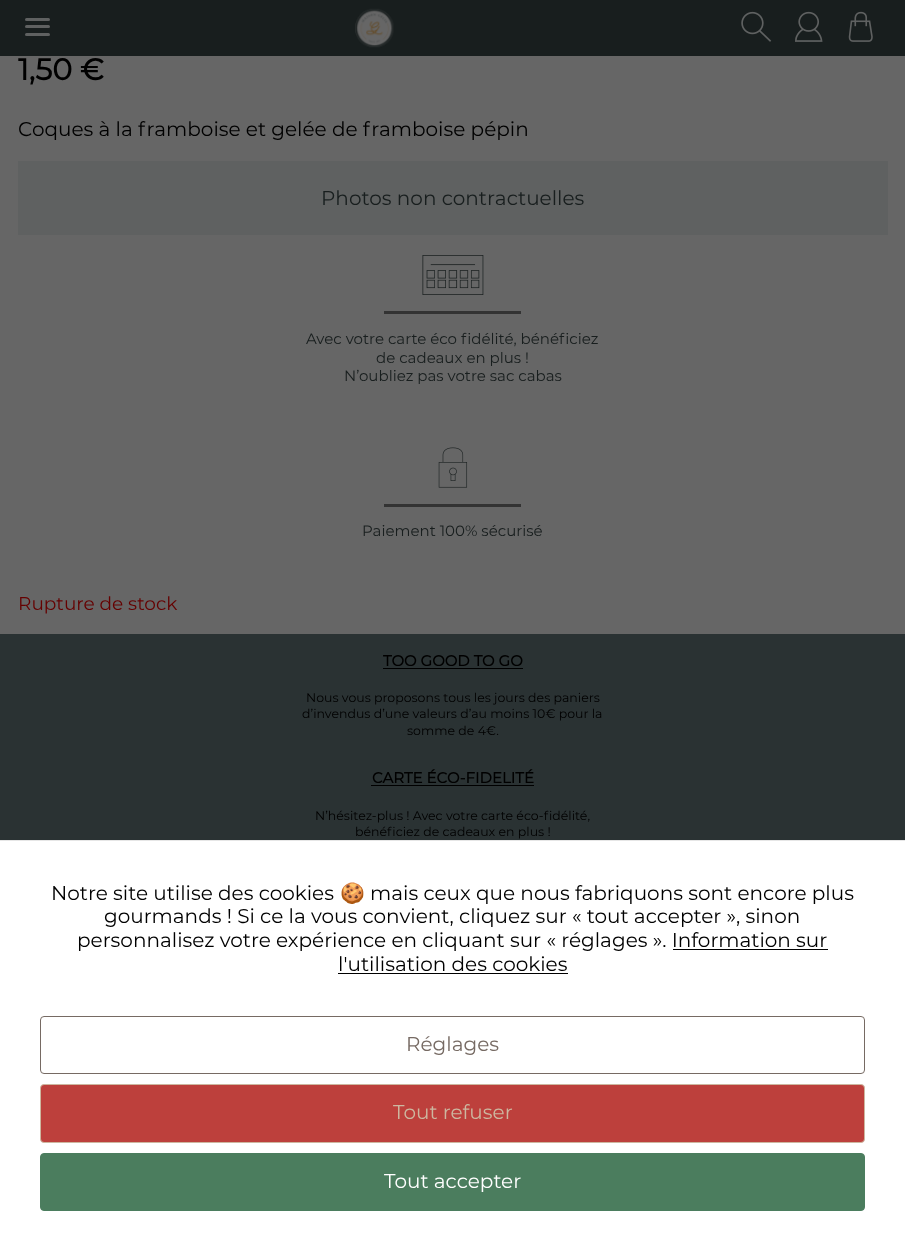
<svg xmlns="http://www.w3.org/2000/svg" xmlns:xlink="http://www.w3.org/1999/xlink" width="905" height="1251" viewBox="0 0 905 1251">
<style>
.cls-1{font:bold 30px Montserrat;fill:#000000}
.cls-2{font:20px Montserrat;fill:#000000}
.cls-3{font:20px Montserrat;fill:#181e1e}
.cls-4{font:15px Montserrat;fill:#181e1e}
.cls-5{font:18.5px Montserrat;fill:#660000}
.cls-6{font:bold 15px Montserrat;fill:#000000}
.cls-7{font:12.5px Montserrat;fill:#000000}
.cls-8{font:20px Noto Color Emoji;fill:#000000}
.cls-9{font:20px Montserrat;fill:#766a63}
.cls-10{font:20px Montserrat;fill:#cdb7a0}
.cls-11{font:20px Montserrat;fill:#ffffff}
</style>
<rect width="100%" height="100%" fill="#666666"/>
<rect fill="#181e1e" x="0" y="0" width="905" height="56"/>
<rect fill="#5f6161" x="25" y="18" width="25" height="3" rx="1.5"/>
<rect fill="#5f6161" x="25" y="25" width="25" height="3" rx="1.5"/>
<rect fill="#5f6161" x="25" y="33" width="25" height="3" rx="1.5"/>
<image xlink:href="image0.png" x="355" y="8" width="39" height="40"/>
<image xlink:href="image1.png" x="741" y="11" width="31" height="31"/>
<image xlink:href="image2.png" x="795" y="11" width="28" height="31"/>
<image xlink:href="image3.png" x="848" y="11" width="25" height="31"/>
<rect fill="#5f6161" x="18" y="161" width="870" height="74"/>
<image xlink:href="image4.png" x="422" y="255" width="62" height="40"/>
<rect fill="#333333" x="384" y="311" width="137" height="3"/>
<image xlink:href="image5.png" x="438" y="447" width="30" height="41"/>
<rect fill="#333333" x="384" y="504" width="137" height="3"/>
<rect fill="#2a3233" x="0" y="634" width="905" height="206"/>
<rect fill="#000000" x="383" y="668" width="140" height="1"/>
<rect fill="#000000" x="371" y="785" width="163" height="1"/>
<rect fill="#ffffff" x="0" y="841" width="905" height="410"/>
<rect fill="#e6e6e6" x="0" y="840" width="905" height="1"/>
<rect fill="#000000" x="673" y="949" width="155" height="1"/>
<rect fill="#000000" x="338" y="973" width="230" height="1"/>
<rect fill="none" stroke="#766a63" x="40.5" y="1016.5" width="824" height="57" rx="3.5"/>
<rect fill="#bd403c" stroke="#cdb7a0" x="40.5" y="1084.5" width="824" height="58" rx="3.5"/>
<rect fill="#4b7d5e" stroke="#4b7d5e" x="40.5" y="1153.5" width="824" height="57" rx="3.5"/>
<text class="cls-1" x="18" y="80">1,50 €</text>
<text class="cls-2" x="18" y="136">Coques à la framboise et gelée de framboise pépin</text>
<text class="cls-3" x="321" y="205">Photos non contractuelles</text>
<text class="cls-4" x="306" y="344">Avec votre carte éco fidélité, bénéficiez</text>
<text class="cls-4" x="376" y="363">de cadeaux en plus !</text>
<text class="cls-4" x="344" y="381">N’oubliez pas votre sac cabas</text>
<text class="cls-4" x="362" y="536">Paiement 100% sécurisé</text>
<text class="cls-5" x="18" y="610">Rupture de stock</text>
<text class="cls-6" x="383" y="666">TOO GOOD TO GO</text>
<text class="cls-7" x="306" y="702">Nous vous proposons tous les jours des paniers</text>
<text class="cls-7" x="302" y="718">d’invendus d’une valeurs d’au moins 10€ pour la</text>
<text class="cls-7" x="407" y="735">somme de 4€.</text>
<text class="cls-6" x="372" y="783">CARTE ÉCO-FIDELITÉ</text>
<text class="cls-7" x="315" y="820">N’hésitez-plus ! Avec votre carte éco-fidélité,</text>
<text class="cls-7" x="355" y="836">bénéficiez de cadeaux en plus !</text>
<text class="cls-2" x="51" y="900">Notre site utilise des cookies</text>
<text class="cls-8" x="340" y="900">🍪</text>
<text class="cls-2" x="370" y="900">mais ceux que nous fabriquons sont encore plus</text>
<text class="cls-2" x="104" y="923">gourmands ! Si ce la vous convient, cliquez sur « tout accepter », sinon</text>
<text class="cls-2" x="77" y="947">personnalisez votre expérience en cliquant sur « réglages ». Information sur</text>
<text class="cls-2" x="338" y="971">l'utilisation des cookies</text>
<text class="cls-9" x="406" y="1051">Réglages</text>
<text class="cls-10" x="393" y="1119">Tout refuser</text>
<text class="cls-11" x="384" y="1188">Tout accepter</text>
</svg>
